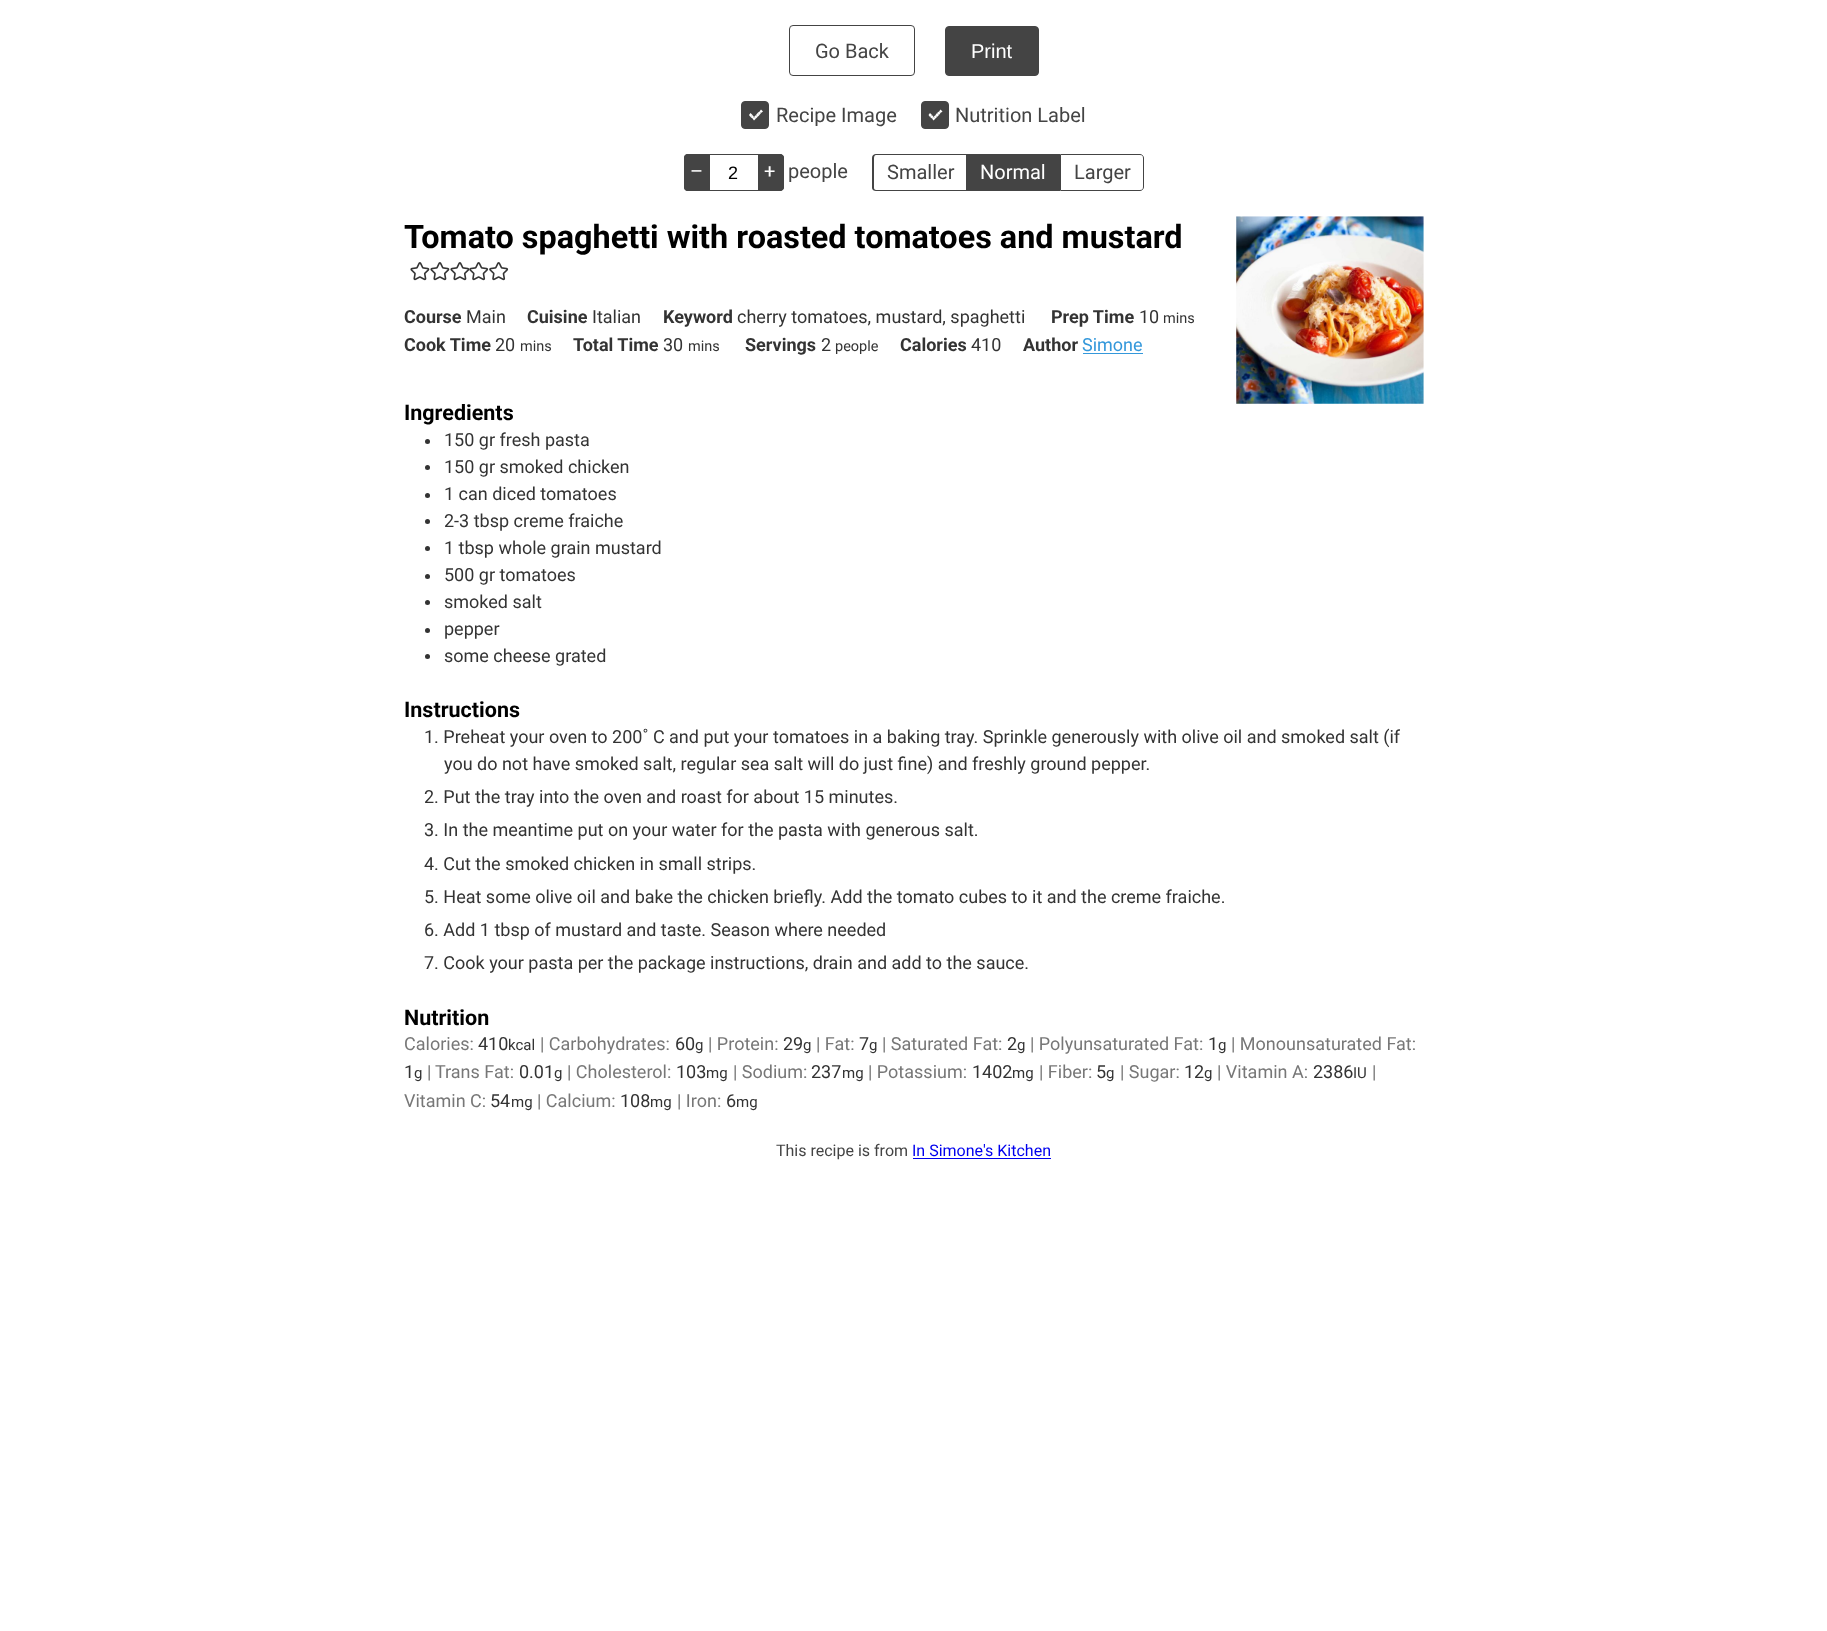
<svg xmlns="http://www.w3.org/2000/svg" xmlns:xlink="http://www.w3.org/1999/xlink" width="1827" height="1631" viewBox="0 0 1827 1631">
<style>
.cls-1{font:20px Roboto;fill:#444444}
.cls-2{font:20px Liberation Sans;fill:#ffffff}
.cls-3{font:20px Roboto;fill:#ffffff}
.cls-4{font:18px Liberation Sans;fill:#000000}
.cls-5{font:bold 32.4px Roboto;fill:#000000}
.cls-6{font:bold 18px Roboto;fill:#333333}
.cls-7{font:18px Roboto;fill:#333333}
.cls-8{font:14.5px Roboto;fill:#333333}
.cls-9{font:18px Roboto;fill:#3498db}
.cls-10{font:bold 21.5px Roboto;fill:#000000}
.cls-11{font:18px Roboto;fill:#777777}
.cls-12{font:15px Roboto;fill:#333333}
.cls-13{font:16px Roboto;fill:#444444}
.cls-14{font:16px Roboto;fill:#0000ee}
</style>
<rect width="100%" height="100%" fill="#ffffff"/>
<rect fill="none" stroke="#444444" x="789.5" y="25.5" width="125" height="50" rx="3.5"/>
<rect fill="#444444" stroke="#444444" x="945.5" y="26.5" width="93" height="49" rx="3.5"/>
<rect fill="#444444" stroke="#444444" x="741.5" y="101.5" width="27" height="27" rx="3.5"/>
<path fill="#ffffff" d="M761 109.5L763 111.5L761 113L759.5 111.5Z"/>
<path fill="#ffffff" d="M759.5 111.5L761 113L759.5 115L757.5 113Z"/>
<path fill="#ffffff" d="M757.5 113L759.5 115L757.5 117L756 115Z"/>
<path fill="#ffffff" d="M756 115L757.5 117L756 118.5L754 117Z"/>
<path fill="#ffffff" d="M754 117L756 118.5L754 120.5L752.5 118.5Z"/>
<path fill="#ffffff" d="M752.5 115L754 117L752.5 118.5L750.5 117Z"/>
<path fill="#ffffff" d="M750.5 113L752.5 115L750.5 117L749 115Z"/>
<rect fill="#444444" stroke="#444444" x="921.5" y="101.5" width="27" height="27" rx="3.5"/>
<path fill="#ffffff" d="M940.5 109.5L942.5 111.5L940.5 113L939 111.5Z"/>
<path fill="#ffffff" d="M939 111.5L940.5 113L939 115L937 113Z"/>
<path fill="#ffffff" d="M937 113L939 115L937 117L935.5 115Z"/>
<path fill="#ffffff" d="M935.5 115L937 117L935.5 118.5L933.5 117Z"/>
<path fill="#ffffff" d="M933.5 117L935.5 118.5L933.5 120.5L932 118.5Z"/>
<path fill="#ffffff" d="M932 115L933.5 117L932 118.5L930 117Z"/>
<path fill="#ffffff" d="M930 113L932 115L930 117L928.5 115Z"/>
<path fill="#444444" d="M688 154H709V191H688C686 191 684 189 684 187V158C684 156 686 154 688 154Z"/>
<path fill="#444444" fill-rule="evenodd" d="M687.5 154H709V191H687.5C685.5 191 684 189.5 684 187.5V157.5C684 155.5 685.5 154 687.5 154ZM687.5 155H709V190H687.5C686 190 685 189 685 187.5V157.5C685 156 686 155 687.5 155Z"/>
<rect fill="none" stroke="#444444" x="709.5" y="154.5" width="49" height="36"/>
<path fill="#444444" d="M759 154H780C782 154 784 156 784 158V187C784 189 782 191 780 191H759Z"/>
<path fill="#444444" fill-rule="evenodd" d="M759 154H780C782 154 784 155.5 784 157.5V187.5C784 189.5 782 191 780 191H759ZM759 155H780C781.5 155 782.5 156 782.5 157.5V187.5C782.5 189 781.5 190 780 190H759Z"/>
<path fill="#444444" fill-rule="evenodd" d="M876 154H966V191H876C874 191 872 190 872 188V158C872 155 874 154 876 154ZM876 155H966V190H876C875 190 874 189 874 188V158C874 156 875 155 876 155Z"/>
<rect fill="#444444" x="966" y="154" width="94" height="37"/>
<path fill="none" stroke="#444444" d="M1060.5 154.5H1140C1142 154.5 1143.5 156 1143.5 158V187C1143.5 189 1142 190.5 1140 190.5H1060.5Z"/>
<image xlink:href="image0.png" x="410" y="262" width="20" height="19"/>
<image xlink:href="image0.png" x="430" y="262" width="20" height="19"/>
<image xlink:href="image1.png" x="450" y="262" width="19" height="19"/>
<image xlink:href="image2.png" x="469" y="262" width="20" height="19"/>
<image xlink:href="image2.png" x="489" y="262" width="20" height="19"/>
<image xlink:href="image3.png" x="1236" y="216" width="188" height="188"/>
<rect fill="#3498db" x="1083" y="353" width="60" height="1"/>
<circle fill="#333333" cx="427.5" cy="441.5" r="2.5"/>
<circle fill="#333333" cx="427.5" cy="467.5" r="2.5"/>
<circle fill="#333333" cx="427.5" cy="495.5" r="2.5"/>
<circle fill="#333333" cx="427.5" cy="521.5" r="2.5"/>
<circle fill="#333333" cx="427.5" cy="548.5" r="2.5"/>
<circle fill="#333333" cx="427.5" cy="576.5" r="2.5"/>
<circle fill="#333333" cx="427.5" cy="602.5" r="2.5"/>
<circle fill="#333333" cx="427.5" cy="630.5" r="2.5"/>
<circle fill="#333333" cx="427.5" cy="656.5" r="2.5"/>
<rect fill="#0000ee" x="913" y="1158" width="138" height="1"/>
<text class="cls-1" x="815" y="58">Go Back</text>
<text class="cls-2" x="971" y="58">Print</text>
<text class="cls-1" x="776" y="122">Recipe Image</text>
<text class="cls-1" x="955" y="122">Nutrition Label</text>
<text class="cls-3" x="690" y="178">–</text>
<text class="cls-4" x="728" y="179">2</text>
<text class="cls-3" x="764" y="178">+</text>
<text class="cls-1" x="788" y="178">people</text>
<text class="cls-1" x="887" y="179">Smaller</text>
<text class="cls-3" x="980" y="179">Normal</text>
<text class="cls-1" x="1074" y="179">Larger</text>
<text class="cls-5" x="404" y="248">Tomato spaghetti with roasted tomatoes and mustard</text>
<text class="cls-6" x="404" y="323">Course</text>
<text class="cls-7" x="466" y="323">Main</text>
<text class="cls-6" x="527" y="323">Cuisine</text>
<text class="cls-7" x="592" y="323">Italian</text>
<text class="cls-6" x="663" y="323">Keyword</text>
<text class="cls-7" x="737" y="323">cherry tomatoes, mustard, spaghetti</text>
<text class="cls-6" x="1051" y="323">Prep Time</text>
<text class="cls-7" x="1139" y="323">10</text>
<text class="cls-8" x="1163" y="323">mins</text>
<text class="cls-6" x="404" y="351">Cook Time</text>
<text class="cls-7" x="495" y="351">20</text>
<text class="cls-8" x="520" y="351">mins</text>
<text class="cls-6" x="573" y="351">Total Time</text>
<text class="cls-7" x="663" y="351">30</text>
<text class="cls-8" x="688" y="351">mins</text>
<text class="cls-6" x="745" y="351">Servings</text>
<text class="cls-7" x="821" y="351">2</text>
<text class="cls-8" x="835" y="351">people</text>
<text class="cls-6" x="900" y="351">Calories</text>
<text class="cls-7" x="971" y="351">410</text>
<text class="cls-6" x="1023" y="351">Author</text>
<text class="cls-9" x="1082" y="351">Simone</text>
<text class="cls-10" x="404" y="420">Ingredients</text>
<text class="cls-7"><tspan x="444" y="446">150 gr fresh pasta</tspan><tspan x="444" y="473">150 gr smoked chicken</tspan><tspan x="444" y="500">1 can diced tomatoes</tspan><tspan x="444" y="527">2-3 tbsp creme fraiche</tspan><tspan x="444" y="554">1 tbsp whole grain mustard</tspan><tspan x="444" y="581">500 gr tomatoes</tspan><tspan x="444" y="608">smoked salt</tspan><tspan x="444" y="635">pepper</tspan><tspan x="444" y="662">some cheese grated</tspan></text>
<text class="cls-10" x="404" y="717">Instructions</text>
<text class="cls-7" x="424" y="743">1. Preheat your oven to 200˚ C and put your tomatoes in a baking tray. Sprinkle generously with olive oil and smoked salt (if</text>
<text class="cls-7" x="444" y="770">you do not have smoked salt, regular sea salt will do just fine) and freshly ground pepper.</text>
<text class="cls-7"><tspan x="424" y="803">2. Put the tray into the oven and roast for about 15 minutes.</tspan><tspan x="424" y="836">3. In the meantime put on your water for the pasta with generous salt.</tspan><tspan x="424" y="870">4. Cut the smoked chicken in small strips.</tspan><tspan x="424" y="903">5. Heat some olive oil and bake the chicken briefly. Add the tomato cubes to it and the creme fraiche.</tspan><tspan x="424" y="936">6. Add 1 tbsp of mustard and taste. Season where needed</tspan><tspan x="424" y="969">7. Cook your pasta per the package instructions, drain and add to the sauce.</tspan></text>
<text class="cls-10" x="404" y="1025">Nutrition</text>
<text class="cls-11" x="404" y="1050">Calories:</text>
<text class="cls-7" x="478" y="1050">410</text>
<text class="cls-12" x="508" y="1050">kcal</text>
<text class="cls-11" x="540" y="1050">| Carbohydrates:</text>
<text class="cls-7" x="675" y="1050">60</text>
<text class="cls-12" x="695" y="1050">g</text>
<text class="cls-11" x="708" y="1050">| Protein:</text>
<text class="cls-7" x="783" y="1050">29</text>
<text class="cls-12" x="803" y="1050">g</text>
<text class="cls-11" x="816" y="1050">| Fat:</text>
<text class="cls-7" x="859" y="1050">7</text>
<text class="cls-12" x="869" y="1050">g</text>
<text class="cls-11" x="882" y="1050">| Saturated Fat:</text>
<text class="cls-7" x="1007" y="1050">2</text>
<text class="cls-12" x="1017" y="1050">g</text>
<text class="cls-11" x="1030" y="1050">| Polyunsaturated Fat:</text>
<text class="cls-7" x="1208" y="1050">1</text>
<text class="cls-12" x="1218" y="1050">g</text>
<text class="cls-11" x="1231" y="1050">| Monounsaturated Fat:</text>
<text class="cls-7" x="404" y="1078">1</text>
<text class="cls-12" x="414" y="1078">g</text>
<text class="cls-11" x="427" y="1078">|</text>
<text class="cls-11" x="435" y="1078">Trans Fat:</text>
<text class="cls-7" x="519" y="1078">0.01</text>
<text class="cls-12" x="554" y="1078">g</text>
<text class="cls-11" x="567" y="1078">| Cholesterol:</text>
<text class="cls-7" x="676" y="1078">103</text>
<text class="cls-12" x="706" y="1078">mg</text>
<text class="cls-11" x="733" y="1078">| Sodium:</text>
<text class="cls-7" x="811" y="1078">237</text>
<text class="cls-12" x="842" y="1078">mg</text>
<text class="cls-11" x="868" y="1078">| Potassium:</text>
<text class="cls-7" x="972" y="1078">1402</text>
<text class="cls-12" x="1012" y="1078">mg</text>
<text class="cls-11" x="1039" y="1078">| Fiber:</text>
<text class="cls-7" x="1096" y="1078">5</text>
<text class="cls-12" x="1106" y="1078">g</text>
<text class="cls-11" x="1120" y="1078">| Sugar:</text>
<text class="cls-7" x="1184" y="1078">12</text>
<text class="cls-12" x="1204" y="1078">g</text>
<text class="cls-11" x="1217" y="1078">| Vitamin A:</text>
<text class="cls-7" x="1313" y="1078">2386</text>
<text class="cls-12" x="1353" y="1078">IU</text>
<text class="cls-11" x="1372" y="1078">|</text>
<text class="cls-11" x="404" y="1107">Vitamin C:</text>
<text class="cls-7" x="490" y="1107">54</text>
<text class="cls-12" x="511" y="1107">mg</text>
<text class="cls-11" x="537" y="1107">| Calcium:</text>
<text class="cls-7" x="620" y="1107">108</text>
<text class="cls-12" x="650" y="1107">mg</text>
<text class="cls-11" x="677" y="1107">| Iron:</text>
<text class="cls-7" x="726" y="1107">6</text>
<text class="cls-12" x="736" y="1107">mg</text>
<text class="cls-13" x="776" y="1156">This recipe is from</text>
<text class="cls-14" x="912" y="1156">In Simone's Kitchen</text>
</svg>
